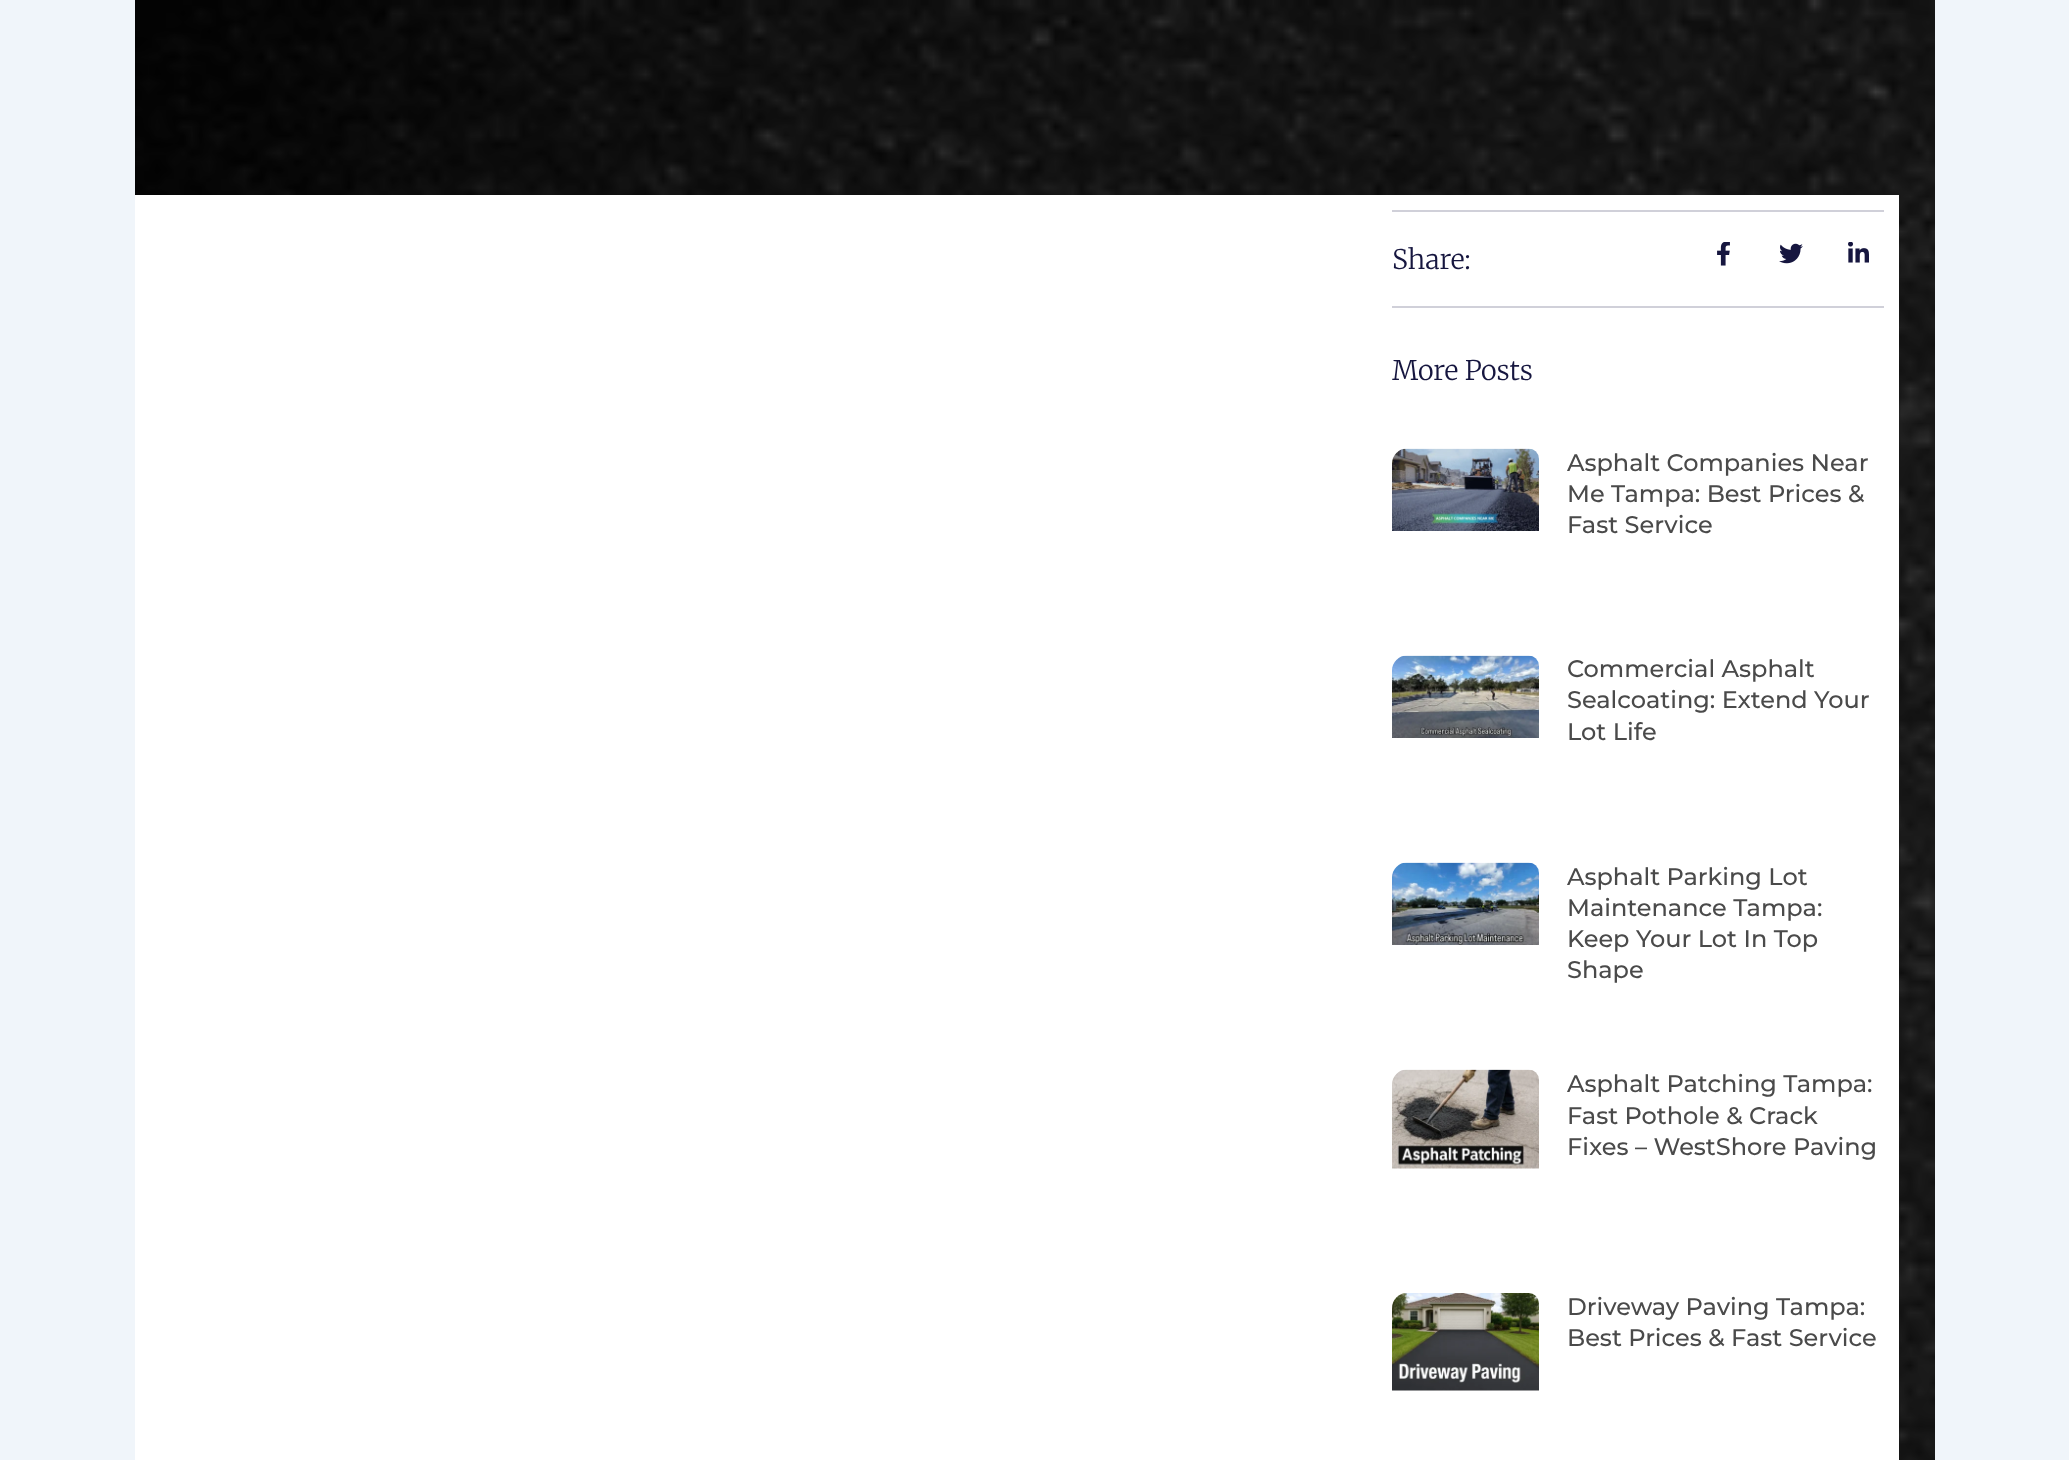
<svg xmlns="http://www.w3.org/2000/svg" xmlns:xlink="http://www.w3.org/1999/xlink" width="2069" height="1460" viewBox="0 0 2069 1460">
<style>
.cls-1{font:300 27px Merriweather;fill:#16163f}
.cls-2{font:500 24px Montserrat;fill:#4a4a4a}
</style>
<rect width="100%" height="100%" fill="#f0f5fa"/>
<image xlink:href="image0.png" x="135" y="0" width="1800" height="1460"/>
<rect fill="#ffffff" x="135" y="195" width="1764" height="1265"/>
<rect fill="#d0d0d9" x="1392" y="210" width="492" height="2"/>
<rect fill="#d0d0d9" x="1392" y="306" width="492" height="2"/>
<image xlink:href="image1.png" x="1717" y="242" width="13" height="24"/>
<image xlink:href="image2.png" x="1779" y="243" width="24" height="21"/>
<image xlink:href="image3.png" x="1848" y="242" width="21" height="21"/>
<image xlink:href="image4.png" x="1392" y="448" width="147" height="83"/>
<image xlink:href="image5.png" x="1392" y="655" width="147" height="83"/>
<image xlink:href="image6.png" x="1392" y="862" width="147" height="83"/>
<image xlink:href="image7.png" x="1392" y="1069" width="147" height="100"/>
<image xlink:href="image8.png" x="1392" y="1293" width="147" height="98"/>
<text class="cls-1" x="1392" y="269">Share:</text>
<text class="cls-1" x="1392" y="380">More Posts</text>
<text class="cls-2"><tspan x="1567" y="471">Asphalt Companies Near</tspan><tspan x="1567" y="502">Me Tampa: Best Prices &amp;</tspan><tspan x="1567" y="533">Fast Service</tspan></text>
<text class="cls-2"><tspan x="1567" y="677">Commercial Asphalt</tspan><tspan x="1567" y="708">Sealcoating: Extend Your</tspan><tspan x="1567" y="740">Lot Life</tspan></text>
<text class="cls-2"><tspan x="1567" y="885">Asphalt Parking Lot</tspan><tspan x="1567" y="916">Maintenance Tampa:</tspan><tspan x="1567" y="947">Keep Your Lot In Top</tspan><tspan x="1567" y="978">Shape</tspan></text>
<text class="cls-2"><tspan x="1567" y="1092">Asphalt Patching Tampa:</tspan><tspan x="1567" y="1124">Fast Pothole &amp; Crack</tspan><tspan x="1567" y="1155">Fixes – WestShore Paving</tspan></text>
<text class="cls-2"><tspan x="1567" y="1315">Driveway Paving Tampa:</tspan><tspan x="1567" y="1346">Best Prices &amp; Fast Service</tspan></text>
</svg>
